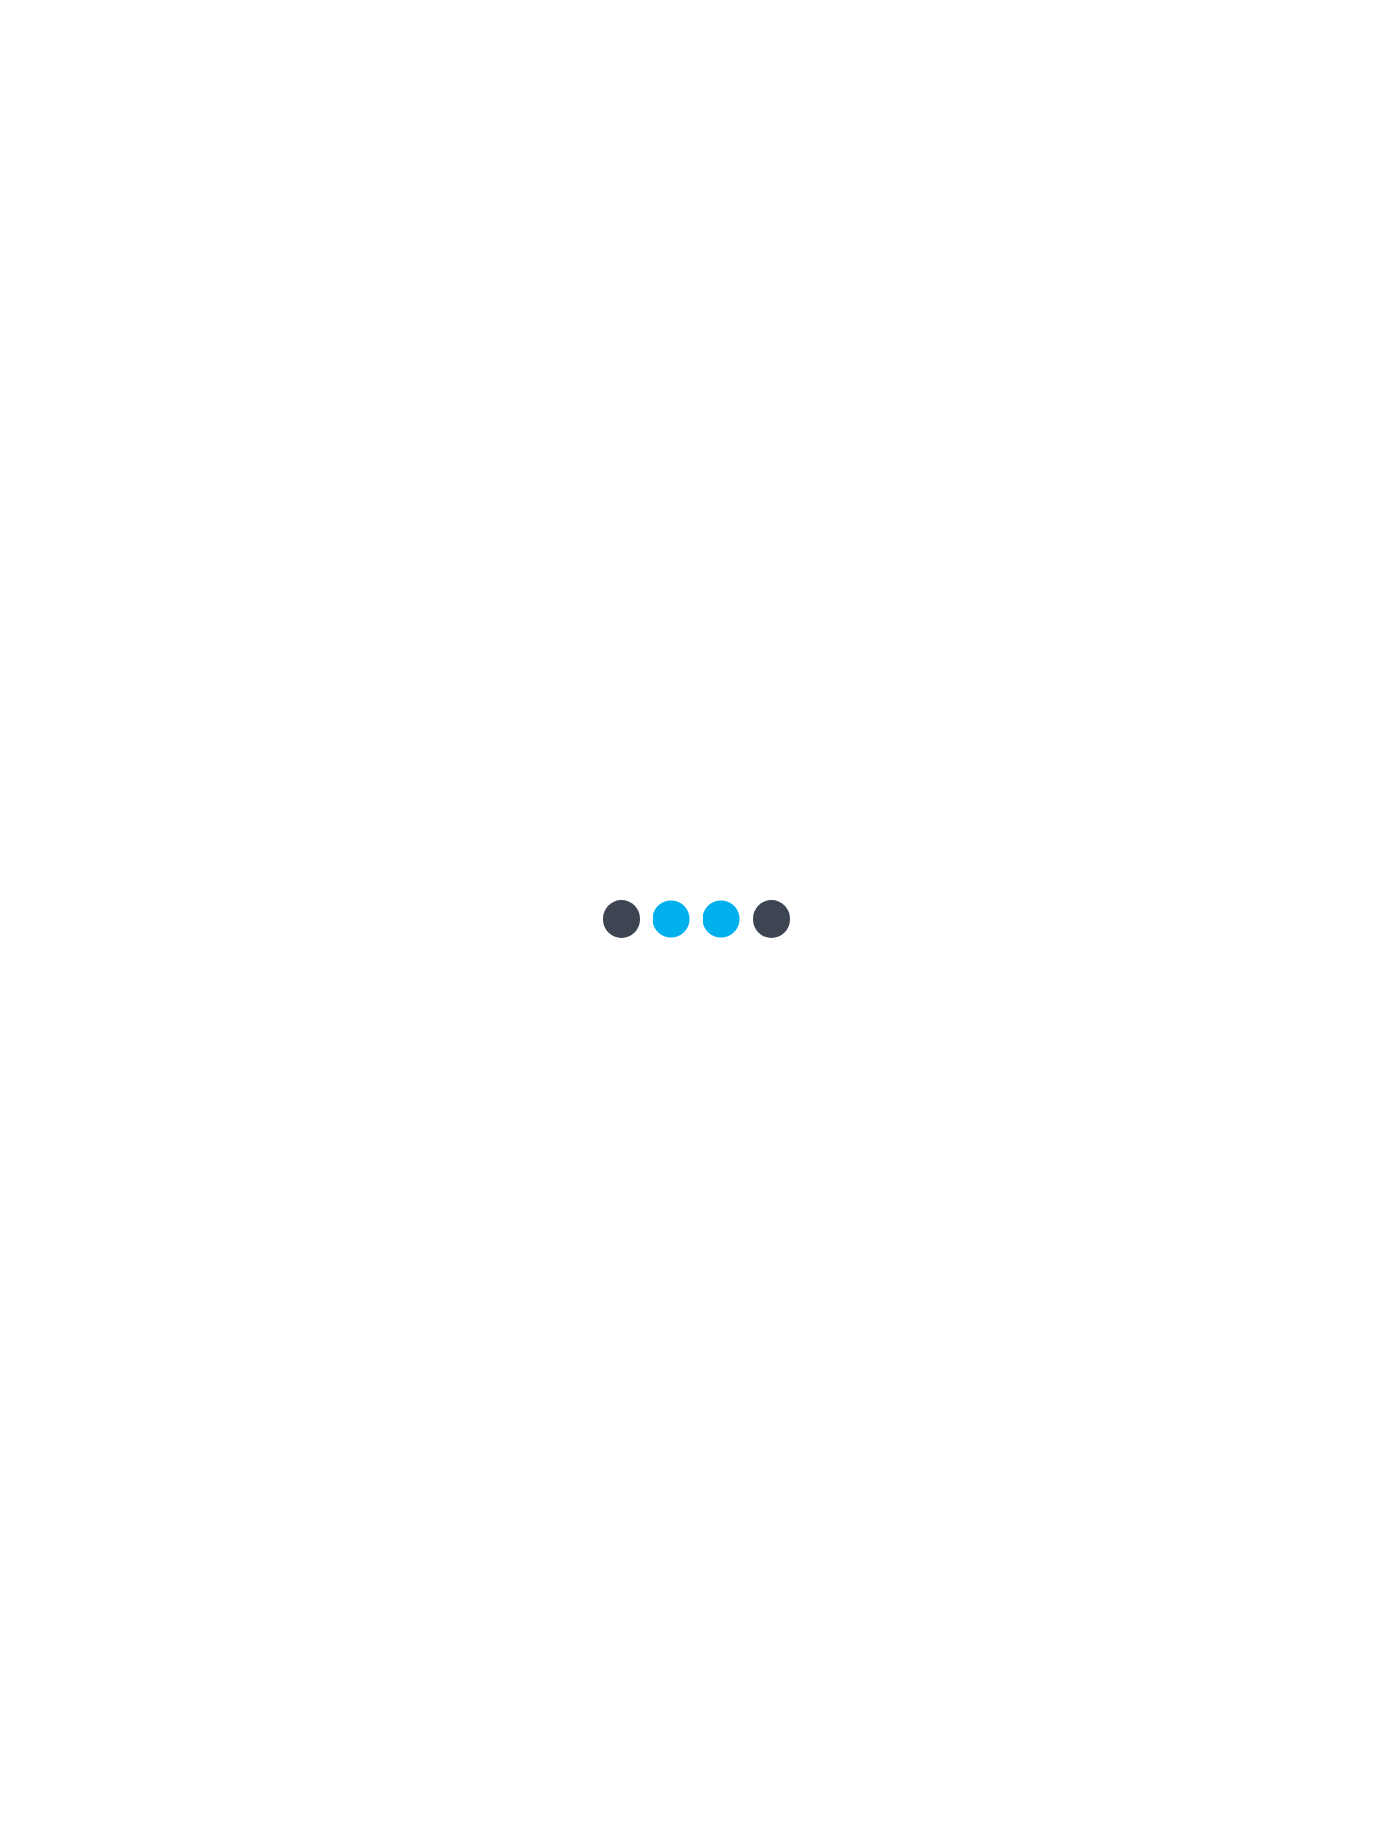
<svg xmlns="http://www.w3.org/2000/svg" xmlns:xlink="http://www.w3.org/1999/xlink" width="1392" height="1835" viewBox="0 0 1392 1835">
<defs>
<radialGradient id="g1" gradientUnits="userSpaceOnUse" cx="721" cy="919" r="19"><stop offset="0.95" stop-color="#00b1ed"/><stop offset="1" stop-color="#ffffff"/></radialGradient>
<radialGradient id="g2" gradientUnits="userSpaceOnUse" cx="671" cy="919" r="19"><stop offset="0.95" stop-color="#00b1ed"/><stop offset="1" stop-color="#ffffff"/></radialGradient>
</defs>
<rect width="100%" height="100%" fill="#ffffff"/>
<rect fill="url(#g1)" x="703" y="900" width="37" height="38"/>
<rect fill="url(#g2)" x="653" y="900" width="37" height="38"/>
<rect fill="#3d4452" x="603" y="900" width="37" height="38" rx="18.5"/>
<rect fill="#3d4452" x="753" y="900" width="37" height="38" rx="18.5"/>
</svg>
